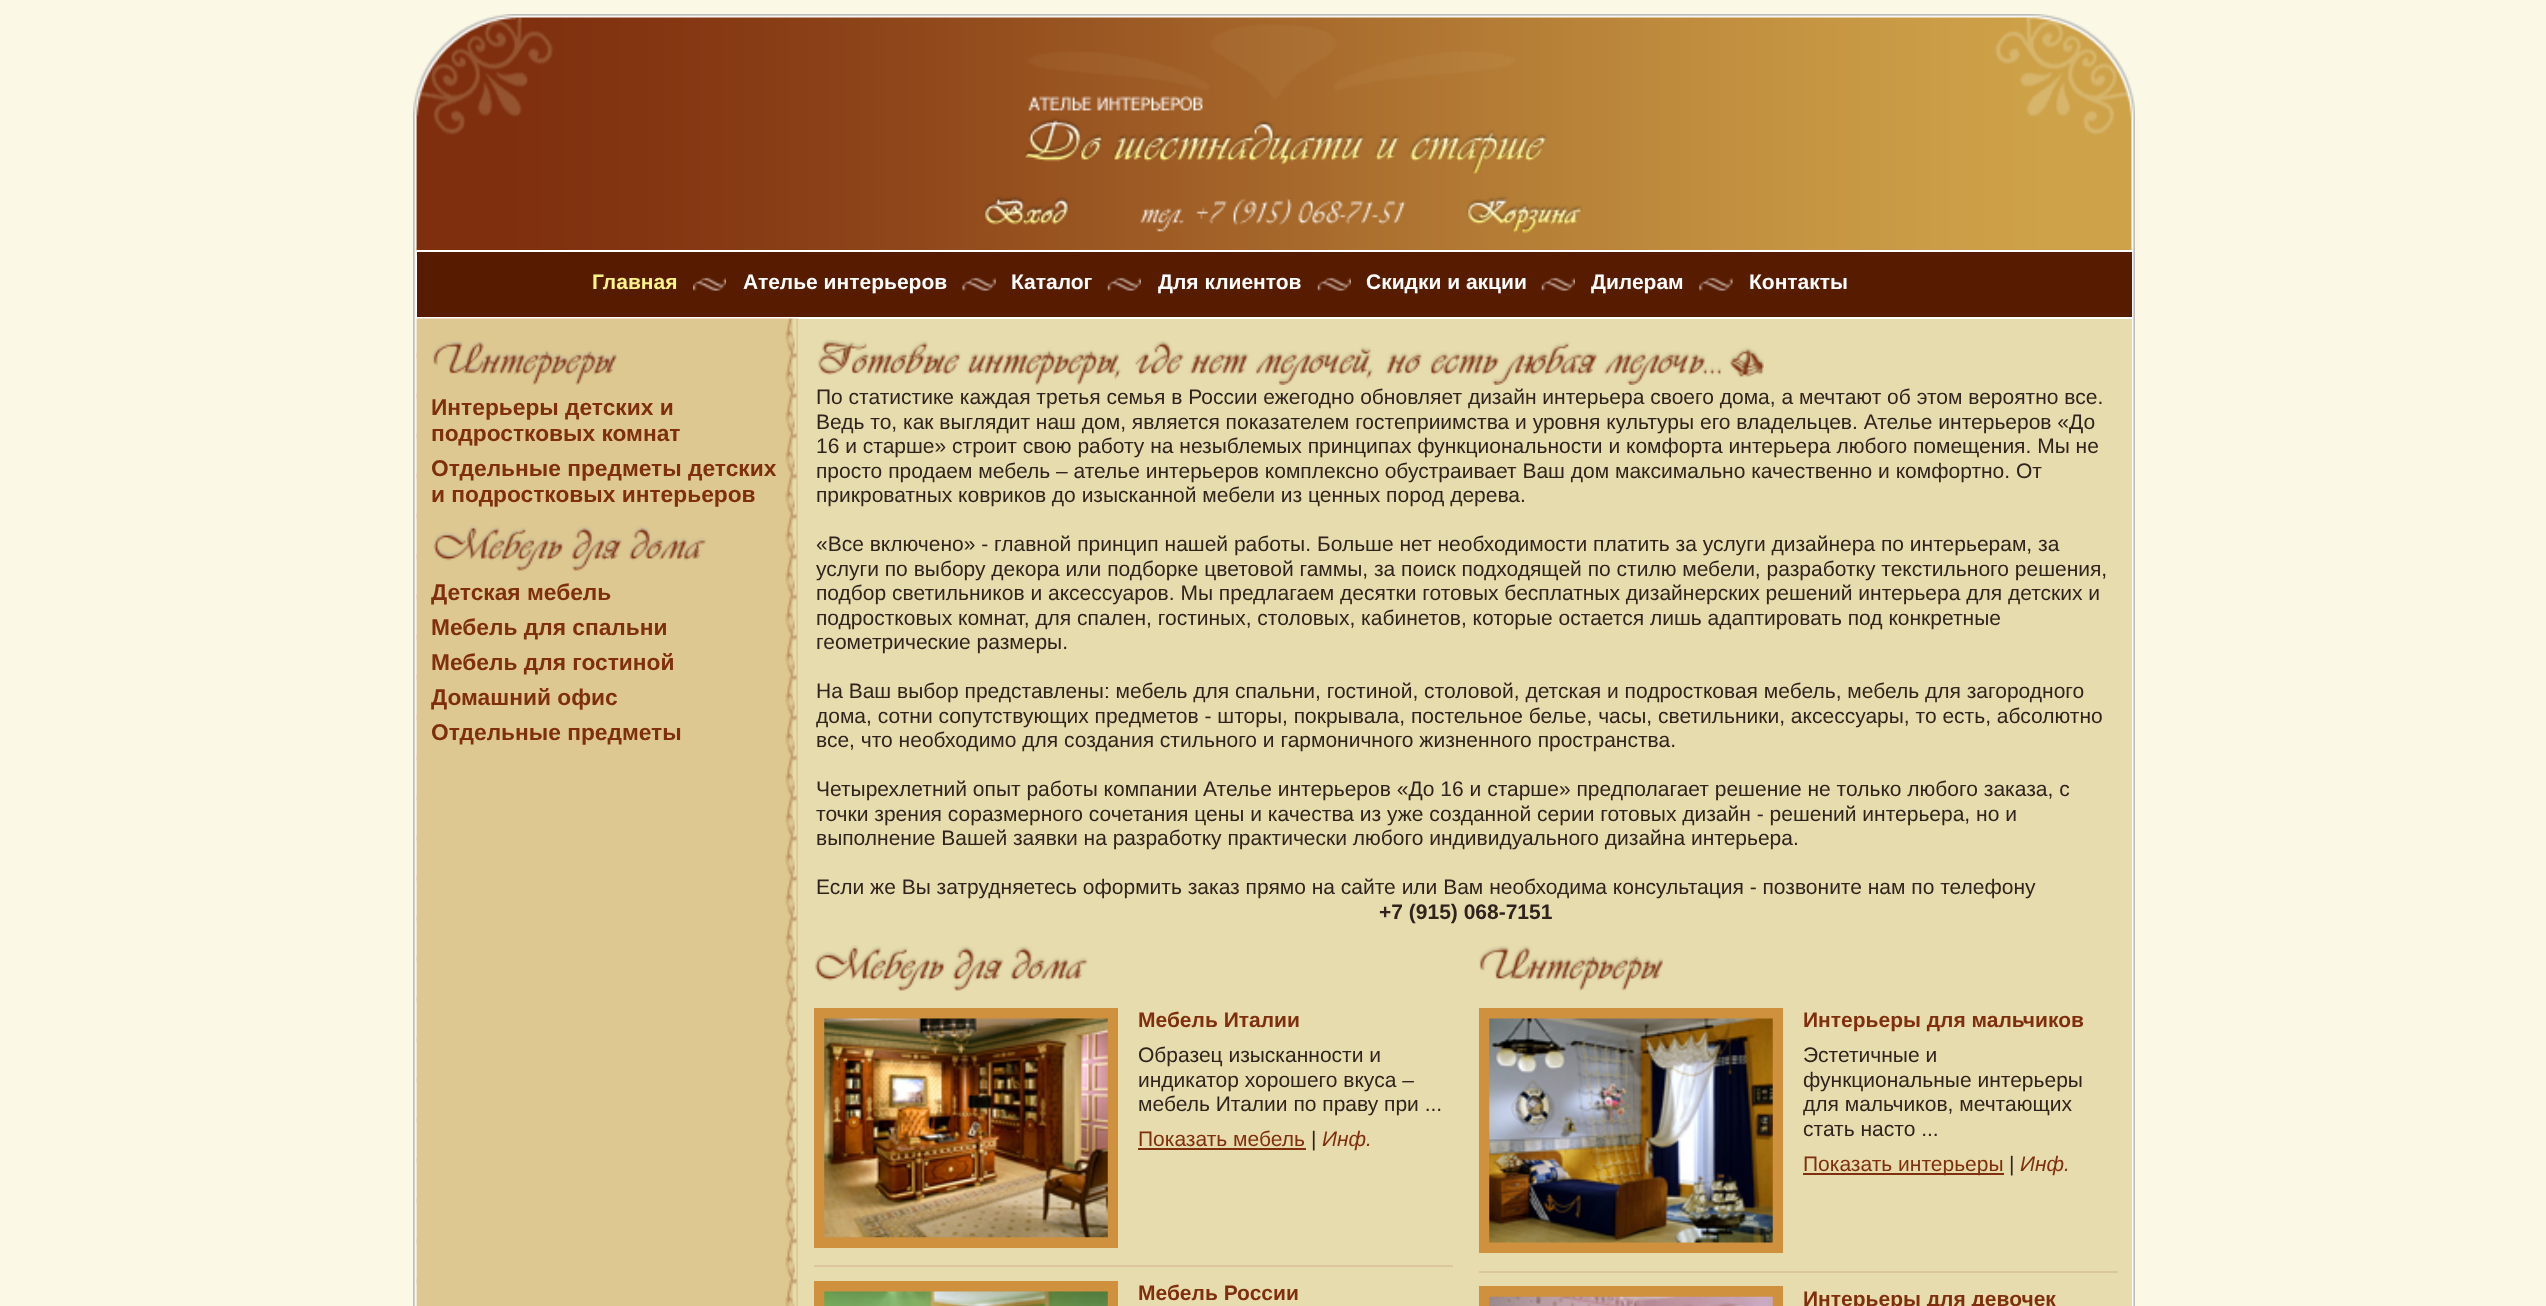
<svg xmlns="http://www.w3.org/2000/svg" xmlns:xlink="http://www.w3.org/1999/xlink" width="2546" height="1306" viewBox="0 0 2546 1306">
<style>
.cls-1{font:bold 21px Liberation Sans;fill:#fef487}
.cls-2{font:bold 21px Liberation Sans;fill:#ffffff}
.cls-3{font:bold 22.75px Liberation Sans;fill:#7f2f0e}
.cls-4{font:21px Liberation Sans;fill:#30231d}
.cls-5{font:bold 21px Liberation Sans;fill:#30231d}
.cls-6{font:bold 21px Liberation Sans;fill:#7f2f0e}
.cls-7{font:21px Liberation Sans;fill:#7f2f0e}
.cls-8{font:italic 21px Liberation Sans;fill:#7f2f0e}
</style>
<rect width="100%" height="100%" fill="#fcf8e6"/>
<rect fill="#ffffff" x="416" y="250" width="1" height="1056"/>
<image xlink:href="image0.png" x="413" y="250" width="1722" height="1056"/>
<image xlink:href="image1.png" x="413" y="14" width="1722" height="237"/>
<rect fill="#571b00" x="417" y="252" width="1715" height="65"/>
<rect fill="#ffffff" x="417" y="250" width="1715" height="2"/>
<rect fill="#ffffff" x="417" y="317" width="1715" height="2"/>
<image xlink:href="image2.png" x="693" y="277" width="33" height="14"/>
<image xlink:href="image3.png" x="962" y="277" width="34" height="14"/>
<image xlink:href="image4.png" x="1107" y="277" width="34" height="14"/>
<image xlink:href="image5.png" x="1317" y="277" width="34" height="14"/>
<image xlink:href="image5.png" x="1541" y="277" width="34" height="14"/>
<image xlink:href="image6.png" x="1699" y="277" width="34" height="14"/>
<rect fill="#e7dcae" x="798" y="319" width="1334" height="987"/>
<image xlink:href="image7.png" x="416" y="318" width="382" height="988"/>
<image xlink:href="image8.png" x="432" y="341" width="185" height="44"/>
<image xlink:href="image9.png" x="433" y="525" width="273" height="46"/>
<image xlink:href="image10.png" x="817" y="339" width="947" height="46"/>
<image xlink:href="image11.png" x="815" y="945" width="273" height="46"/>
<rect fill="none" stroke="#cf913e" stroke-width="11" x="819.5" y="1013.5" width="293" height="229"/>
<image xlink:href="image12.png" x="824" y="1018" width="284" height="220"/>
<rect fill="#7f2f0e" x="1138" y="1148" width="168" height="2"/>
<rect fill="#ddc59f" x="814" y="1265" width="639" height="2"/>
<rect fill="none" stroke="#cf913e" stroke-width="11" x="819.5" y="1286.5" width="293" height="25"/>
<image xlink:href="image13.png" x="824" y="1291" width="284" height="15"/>
<image xlink:href="image14.png" x="1479" y="945" width="185" height="46"/>
<rect fill="none" stroke="#cf913e" stroke-width="11" x="1484.5" y="1013.5" width="293" height="234"/>
<image xlink:href="image15.png" x="1489" y="1018" width="284" height="225"/>
<rect fill="#7f2f0e" x="1803" y="1173" width="201" height="2"/>
<rect fill="#ddc59f" x="1479" y="1271" width="639" height="2"/>
<rect fill="none" stroke="#cf913e" stroke-width="11" x="1484.5" y="1291.5" width="293" height="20"/>
<image xlink:href="image16.png" x="1489" y="1296" width="284" height="10"/>
<text class="cls-1" x="592" y="289">Главная</text>
<text class="cls-2" x="743" y="289">Ателье интерьеров</text>
<text class="cls-2" x="1011" y="289">Каталог</text>
<text class="cls-2" x="1158" y="289">Для клиентов</text>
<text class="cls-2" x="1366" y="289">Скидки и акции</text>
<text class="cls-2" x="1591" y="289">Дилерам</text>
<text class="cls-2" x="1749" y="289">Контакты</text>
<text class="cls-3"><tspan x="431" y="415">Интерьеры детских и</tspan><tspan x="431" y="441">подростковых комнат</tspan><tspan x="431" y="476">Отдельные предметы детских</tspan><tspan x="431" y="502">и подростковых интерьеров</tspan></text>
<text class="cls-3"><tspan x="431" y="600">Детская мебель</tspan><tspan x="431" y="635">Мебель для спальни</tspan><tspan x="431" y="670">Мебель для гостиной</tspan><tspan x="431" y="705">Домашний офис</tspan><tspan x="431" y="740">Отдельные предметы</tspan></text>
<text class="cls-4"><tspan x="816" y="404">По статистике каждая третья семья в России ежегодно обновляет дизайн интерьера своего дома, а мечтают об этом вероятно все.</tspan><tspan x="816" y="429">Ведь то, как выглядит наш дом, является показателем гостеприимства и уровня культуры его владельцев. Ателье интерьеров «До</tspan><tspan x="816" y="453">16 и старше» строит свою работу на незыблемых принципах функциональности и комфорта интерьера любого помещения. Мы не</tspan><tspan x="816" y="478">просто продаем мебель – ателье интерьеров комплексно обустраивает Ваш дом максимально качественно и комфортно. От</tspan><tspan x="816" y="502">прикроватных ковриков до изысканной мебели из ценных пород дерева.</tspan></text>
<text class="cls-4"><tspan x="816" y="551">«Все включено» - главной принцип нашей работы. Больше нет необходимости платить за услуги дизайнера по интерьерам, за</tspan><tspan x="816" y="576">услуги по выбору декора или подборке цветовой гаммы, за поиск подходящей по стилю мебели, разработку текстильного решения,</tspan><tspan x="816" y="600">подбор светильников и аксессуаров. Мы предлагаем десятки готовых бесплатных дизайнерских решений интерьера для детских и</tspan><tspan x="816" y="625">подростковых комнат, для спален, гостиных, столовых, кабинетов, которые остается лишь адаптировать под конкретные</tspan><tspan x="816" y="649">геометрические размеры.</tspan></text>
<text class="cls-4"><tspan x="816" y="698">На Ваш выбор представлены: мебель для спальни, гостиной, столовой, детская и подростковая мебель, мебель для загородного</tspan><tspan x="816" y="723">дома, сотни сопутствующих предметов - шторы, покрывала, постельное белье, часы, светильники, аксессуары, то есть, абсолютно</tspan><tspan x="816" y="747">все, что необходимо для создания стильного и гармоничного жизненного пространства.</tspan></text>
<text class="cls-4"><tspan x="816" y="796">Четырехлетний опыт работы компании Ателье интерьеров «До 16 и старше» предполагает решение не только любого заказа, с</tspan><tspan x="816" y="821">точки зрения соразмерного сочетания цены и качества из уже созданной серии готовых дизайн - решений интерьера, но и</tspan><tspan x="816" y="845">выполнение Вашей заявки на разработку практически любого индивидуального дизайна интерьера.</tspan></text>
<text class="cls-4" x="816" y="894">Если же Вы затрудняетесь оформить заказ прямо на сайте или Вам необходима консультация - позвоните нам по телефону</text>
<text class="cls-5" x="1379" y="919">+7 (915) 068-7151</text>
<text class="cls-6" x="1138" y="1027">Мебель Италии</text>
<text class="cls-4"><tspan x="1138" y="1062">Образец изысканности и</tspan><tspan x="1138" y="1087">индикатор хорошего вкуса –</tspan><tspan x="1138" y="1111">мебель Италии по праву при ...</tspan></text>
<text class="cls-7" x="1138" y="1146">Показать мебель</text>
<text class="cls-4" x="1311" y="1146">|</text>
<text class="cls-8" x="1322" y="1146">Инф.</text>
<text class="cls-6" x="1138" y="1300">Мебель России</text>
<text class="cls-6" x="1803" y="1027">Интерьеры для мальчиков</text>
<text class="cls-4"><tspan x="1803" y="1062">Эстетичные и</tspan><tspan x="1803" y="1087">функциональные интерьеры</tspan><tspan x="1803" y="1111">для мальчиков, мечтающих</tspan><tspan x="1803" y="1136">стать насто ...</tspan></text>
<text class="cls-7" x="1803" y="1171">Показать интерьеры</text>
<text class="cls-4" x="2009" y="1171">|</text>
<text class="cls-8" x="2020" y="1171">Инф.</text>
<text class="cls-6" x="1803" y="1306">Интерьеры для девочек</text>
</svg>
